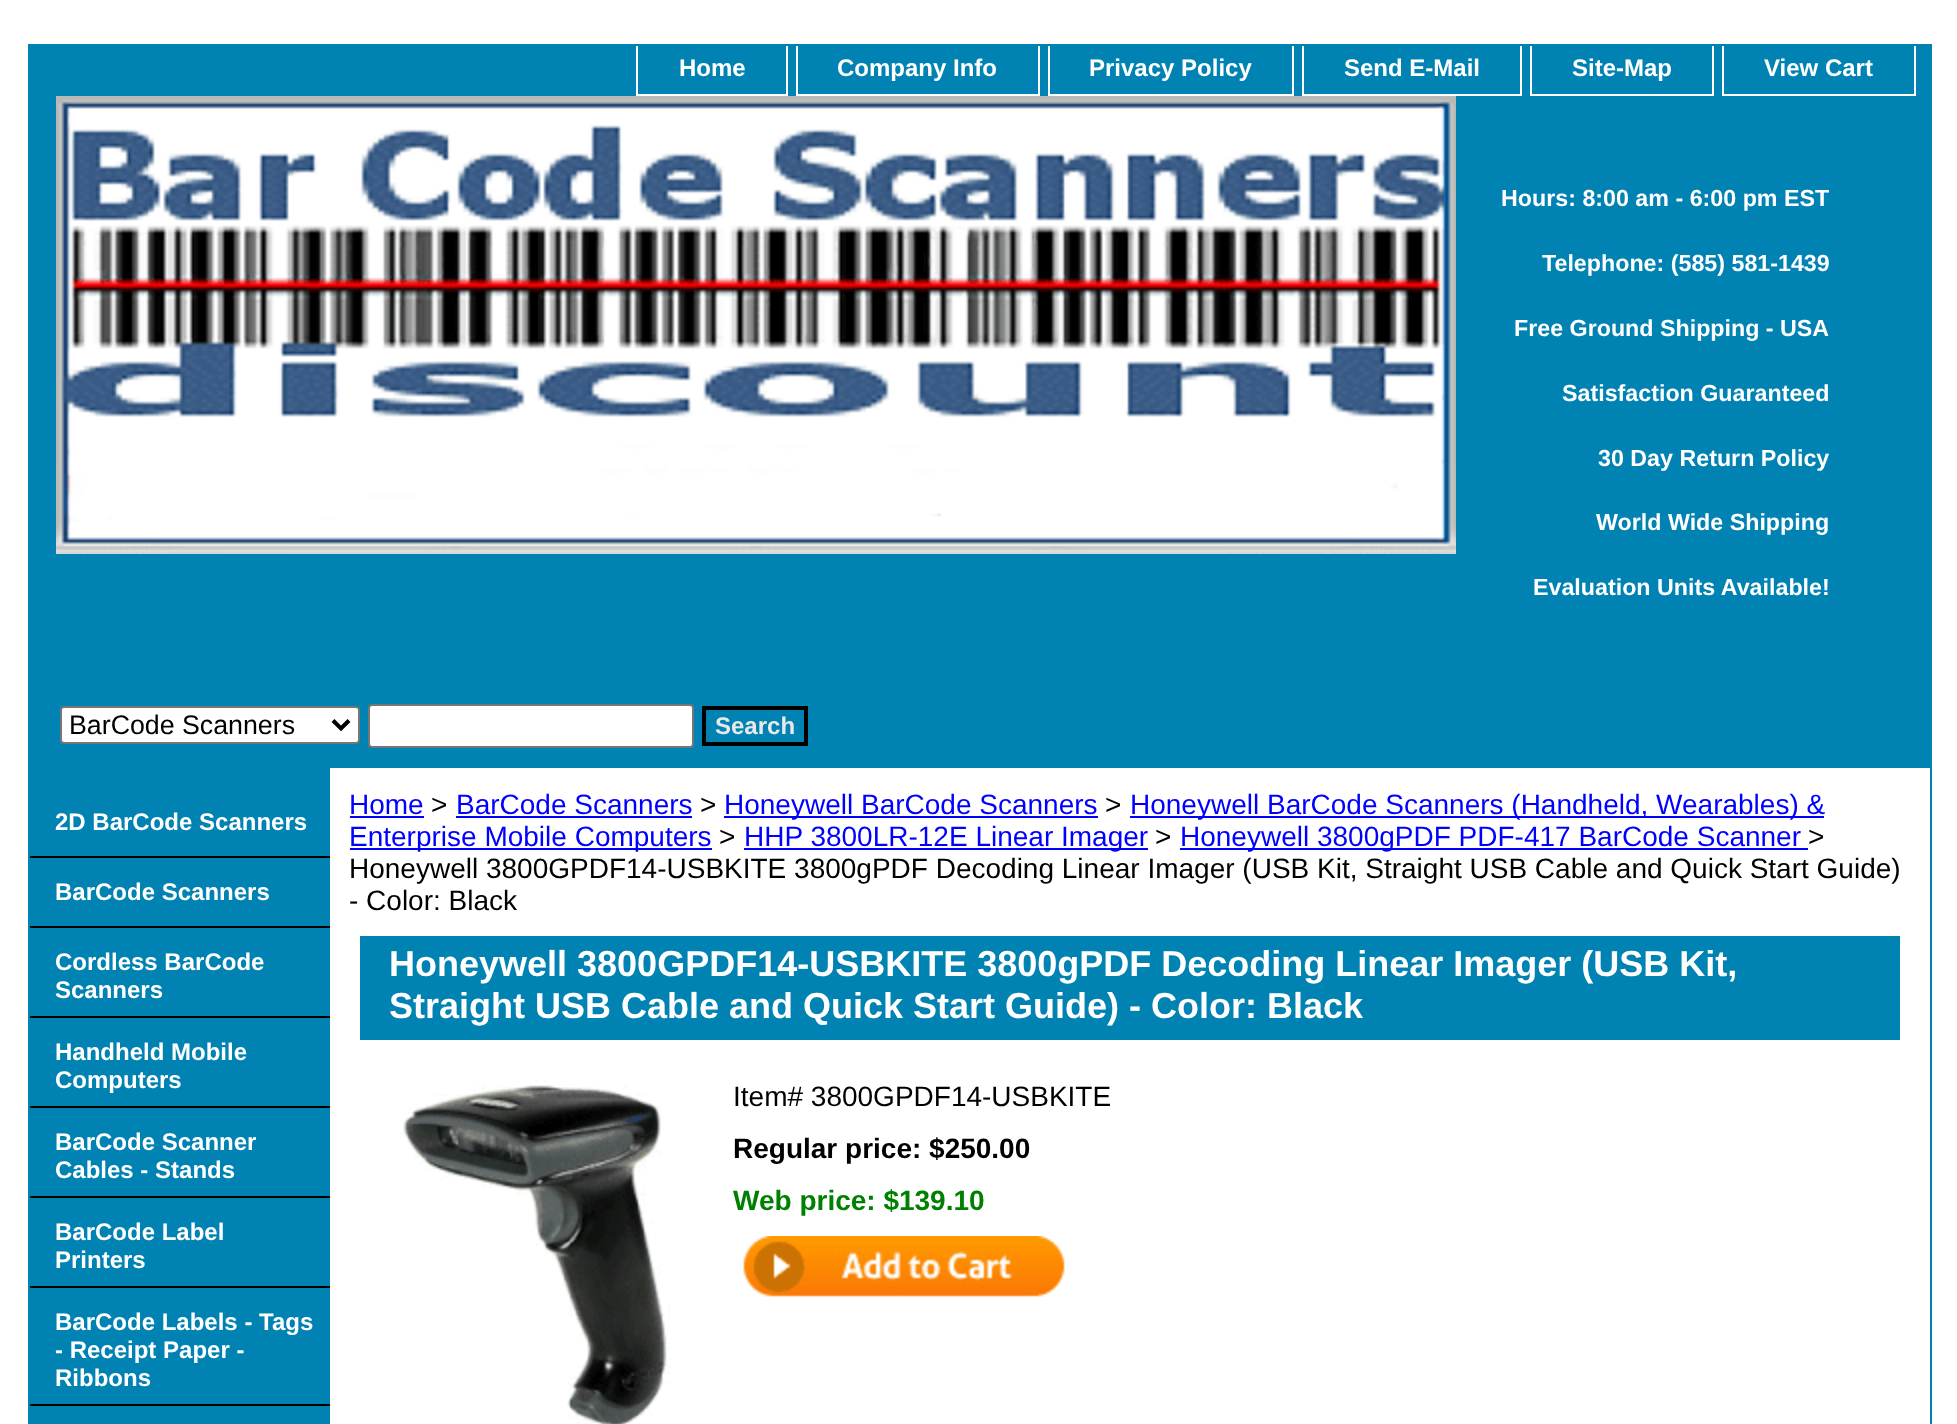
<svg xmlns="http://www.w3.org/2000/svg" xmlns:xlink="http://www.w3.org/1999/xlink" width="1957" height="1424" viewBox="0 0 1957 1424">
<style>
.cls-1{font:bold 24px Liberation Sans;fill:#ffffff}
.cls-2{font:bold 23.25px Liberation Sans;fill:#ffffff}
.cls-3{font:26.75px Liberation Sans;fill:#000000}
.cls-4{font:bold 24px Liberation Sans;fill:#e9e9e9}
.cls-5{font:28px Liberation Sans;fill:#0000ff}
.cls-6{font:28px Liberation Sans;fill:#000000}
.cls-7{font:bold 36px Liberation Sans;fill:#ffffff}
.cls-8{font:bold 28px Liberation Sans;fill:#000000}
.cls-9{font:bold 28px Liberation Sans;fill:#008000}
</style>
<rect width="100%" height="100%" fill="#ffffff"/>
<rect fill="none" stroke="#0083b3" stroke-width="2" x="29" y="45" width="1902" height="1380"/>
<rect fill="#0083b3" x="30" y="46" width="1900" height="722"/>
<rect fill="#ffffff" x="786" y="46" width="2" height="50"/>
<rect fill="#ffffff" x="636" y="94" width="152" height="2"/>
<rect fill="#ffffff" x="636" y="46" width="2" height="50"/>
<rect fill="#ffffff" x="1038" y="46" width="2" height="50"/>
<rect fill="#ffffff" x="796" y="94" width="244" height="2"/>
<rect fill="#ffffff" x="796" y="46" width="2" height="50"/>
<rect fill="#ffffff" x="1292" y="46" width="2" height="50"/>
<rect fill="#ffffff" x="1048" y="94" width="246" height="2"/>
<rect fill="#ffffff" x="1048" y="46" width="2" height="50"/>
<rect fill="#ffffff" x="1520" y="46" width="2" height="50"/>
<rect fill="#ffffff" x="1302" y="94" width="220" height="2"/>
<rect fill="#ffffff" x="1302" y="46" width="2" height="50"/>
<rect fill="#ffffff" x="1712" y="46" width="2" height="50"/>
<rect fill="#ffffff" x="1530" y="94" width="184" height="2"/>
<rect fill="#ffffff" x="1530" y="46" width="2" height="50"/>
<rect fill="#ffffff" x="1914" y="46" width="2" height="50"/>
<rect fill="#ffffff" x="1722" y="94" width="194" height="2"/>
<rect fill="#ffffff" x="1722" y="46" width="2" height="50"/>
<image xlink:href="image0.png" x="56" y="96" width="1400" height="458"/>
<rect fill="#ffffff" stroke="#767676" stroke-width="2" x="61" y="707" width="298" height="36" rx="3"/>
<path fill="none" stroke="#000000" stroke-width="4" d="M333 720.5L341 728.5L349 720.5"/>
<rect fill="#ffffff" stroke="#767676" stroke-width="2" x="369" y="705" width="324" height="42" rx="3"/>
<rect fill="none" stroke="#000000" stroke-width="4" x="704" y="708" width="102" height="36"/>
<rect fill="#0083b3" x="30" y="768" width="300" height="656"/>
<rect fill="#000000" x="30" y="856" width="300" height="2"/>
<rect fill="#000000" x="30" y="926" width="300" height="2"/>
<rect fill="#000000" x="30" y="1016" width="300" height="2"/>
<rect fill="#000000" x="30" y="1106" width="300" height="2"/>
<rect fill="#000000" x="30" y="1196" width="300" height="2"/>
<rect fill="#000000" x="30" y="1286" width="300" height="2"/>
<rect fill="#000000" x="30" y="1404" width="300" height="2"/>
<rect fill="#0000ff" x="350" y="816" width="74" height="2"/>
<rect fill="#0000ff" x="456" y="816" width="236" height="2"/>
<rect fill="#0000ff" x="724" y="816" width="374" height="2"/>
<rect fill="#0000ff" x="1130" y="816" width="694" height="2"/>
<rect fill="#0000ff" x="350" y="848" width="362" height="2"/>
<rect fill="#0000ff" x="744" y="848" width="404" height="2"/>
<rect fill="#0000ff" x="1180" y="848" width="628" height="2"/>
<rect fill="#0083b3" x="360" y="936" width="1540" height="104"/>
<image xlink:href="image1.png" x="400" y="1080" width="272" height="344"/>
<image xlink:href="image2.png" x="743" y="1236" width="322" height="61"/>
<text class="cls-1" x="679" y="76">Home</text>
<text class="cls-1" x="837" y="76">Company Info</text>
<text class="cls-1" x="1089" y="76">Privacy Policy</text>
<text class="cls-1" x="1344" y="76">Send E-Mail</text>
<text class="cls-1" x="1572" y="76">Site-Map</text>
<text class="cls-1" x="1764" y="76">View Cart</text>
<text class="cls-2" x="1501" y="206">Hours: 8:00 am - 6:00 pm EST</text>
<text class="cls-2" x="1542" y="271">Telephone: (585) 581-1439</text>
<text class="cls-2" x="1514" y="336">Free Ground Shipping - USA</text>
<text class="cls-2" x="1562" y="401">Satisfaction Guaranteed</text>
<text class="cls-2" x="1598" y="466">30 Day Return Policy</text>
<text class="cls-2" x="1596" y="530">World Wide Shipping</text>
<text class="cls-2" x="1533" y="595">Evaluation Units Available!</text>
<text class="cls-3" x="69" y="734">BarCode Scanners</text>
<text class="cls-4" x="715" y="734">Search</text>
<text class="cls-1" x="55" y="830">2D BarCode Scanners</text>
<text class="cls-1" x="55" y="900">BarCode Scanners</text>
<text class="cls-1"><tspan x="55" y="970">Cordless BarCode</tspan><tspan x="55" y="998">Scanners</tspan></text>
<text class="cls-1"><tspan x="55" y="1060">Handheld Mobile</tspan><tspan x="55" y="1088">Computers</tspan></text>
<text class="cls-1"><tspan x="55" y="1150">BarCode Scanner</tspan><tspan x="55" y="1178">Cables - Stands</tspan></text>
<text class="cls-1"><tspan x="55" y="1240">BarCode Label</tspan><tspan x="55" y="1268">Printers</tspan></text>
<text class="cls-1"><tspan x="55" y="1330">BarCode Labels - Tags</tspan><tspan x="55" y="1358">- Receipt Paper -</tspan><tspan x="55" y="1386">Ribbons</tspan></text>
<text class="cls-5" x="349" y="814">Home</text>
<text class="cls-6" x="431" y="814">&gt;</text>
<text class="cls-5" x="456" y="814">BarCode Scanners</text>
<text class="cls-6" x="700" y="814">&gt;</text>
<text class="cls-5" x="724" y="814">Honeywell BarCode Scanners</text>
<text class="cls-6" x="1105" y="814">&gt;</text>
<text class="cls-5" x="1130" y="814">Honeywell BarCode Scanners (Handheld, Wearables) &amp;</text>
<text class="cls-5" x="349" y="846">Enterprise Mobile Computers</text>
<text class="cls-6" x="719" y="846">&gt;</text>
<text class="cls-5" x="744" y="846">HHP 3800LR-12E Linear Imager</text>
<text class="cls-6" x="1155" y="846">&gt;</text>
<text class="cls-5" x="1180" y="846">Honeywell 3800gPDF PDF-417 BarCode Scanner</text>
<text class="cls-6" x="1808" y="846">&gt;</text>
<text class="cls-6"><tspan x="349" y="878">Honeywell 3800GPDF14-USBKITE 3800gPDF Decoding Linear Imager (USB Kit, Straight USB Cable and Quick Start Guide)</tspan><tspan x="349" y="910">- Color: Black</tspan></text>
<text class="cls-7"><tspan x="389" y="976">Honeywell 3800GPDF14-USBKITE 3800gPDF Decoding Linear Imager (USB Kit,</tspan><tspan x="389" y="1018">Straight USB Cable and Quick Start Guide) - Color: Black</tspan></text>
<text class="cls-6" x="733" y="1106">Item# 3800GPDF14-USBKITE</text>
<text class="cls-8" x="733" y="1158">Regular price: $250.00</text>
<text class="cls-9" x="733" y="1210">Web price: $139.10</text>
</svg>
